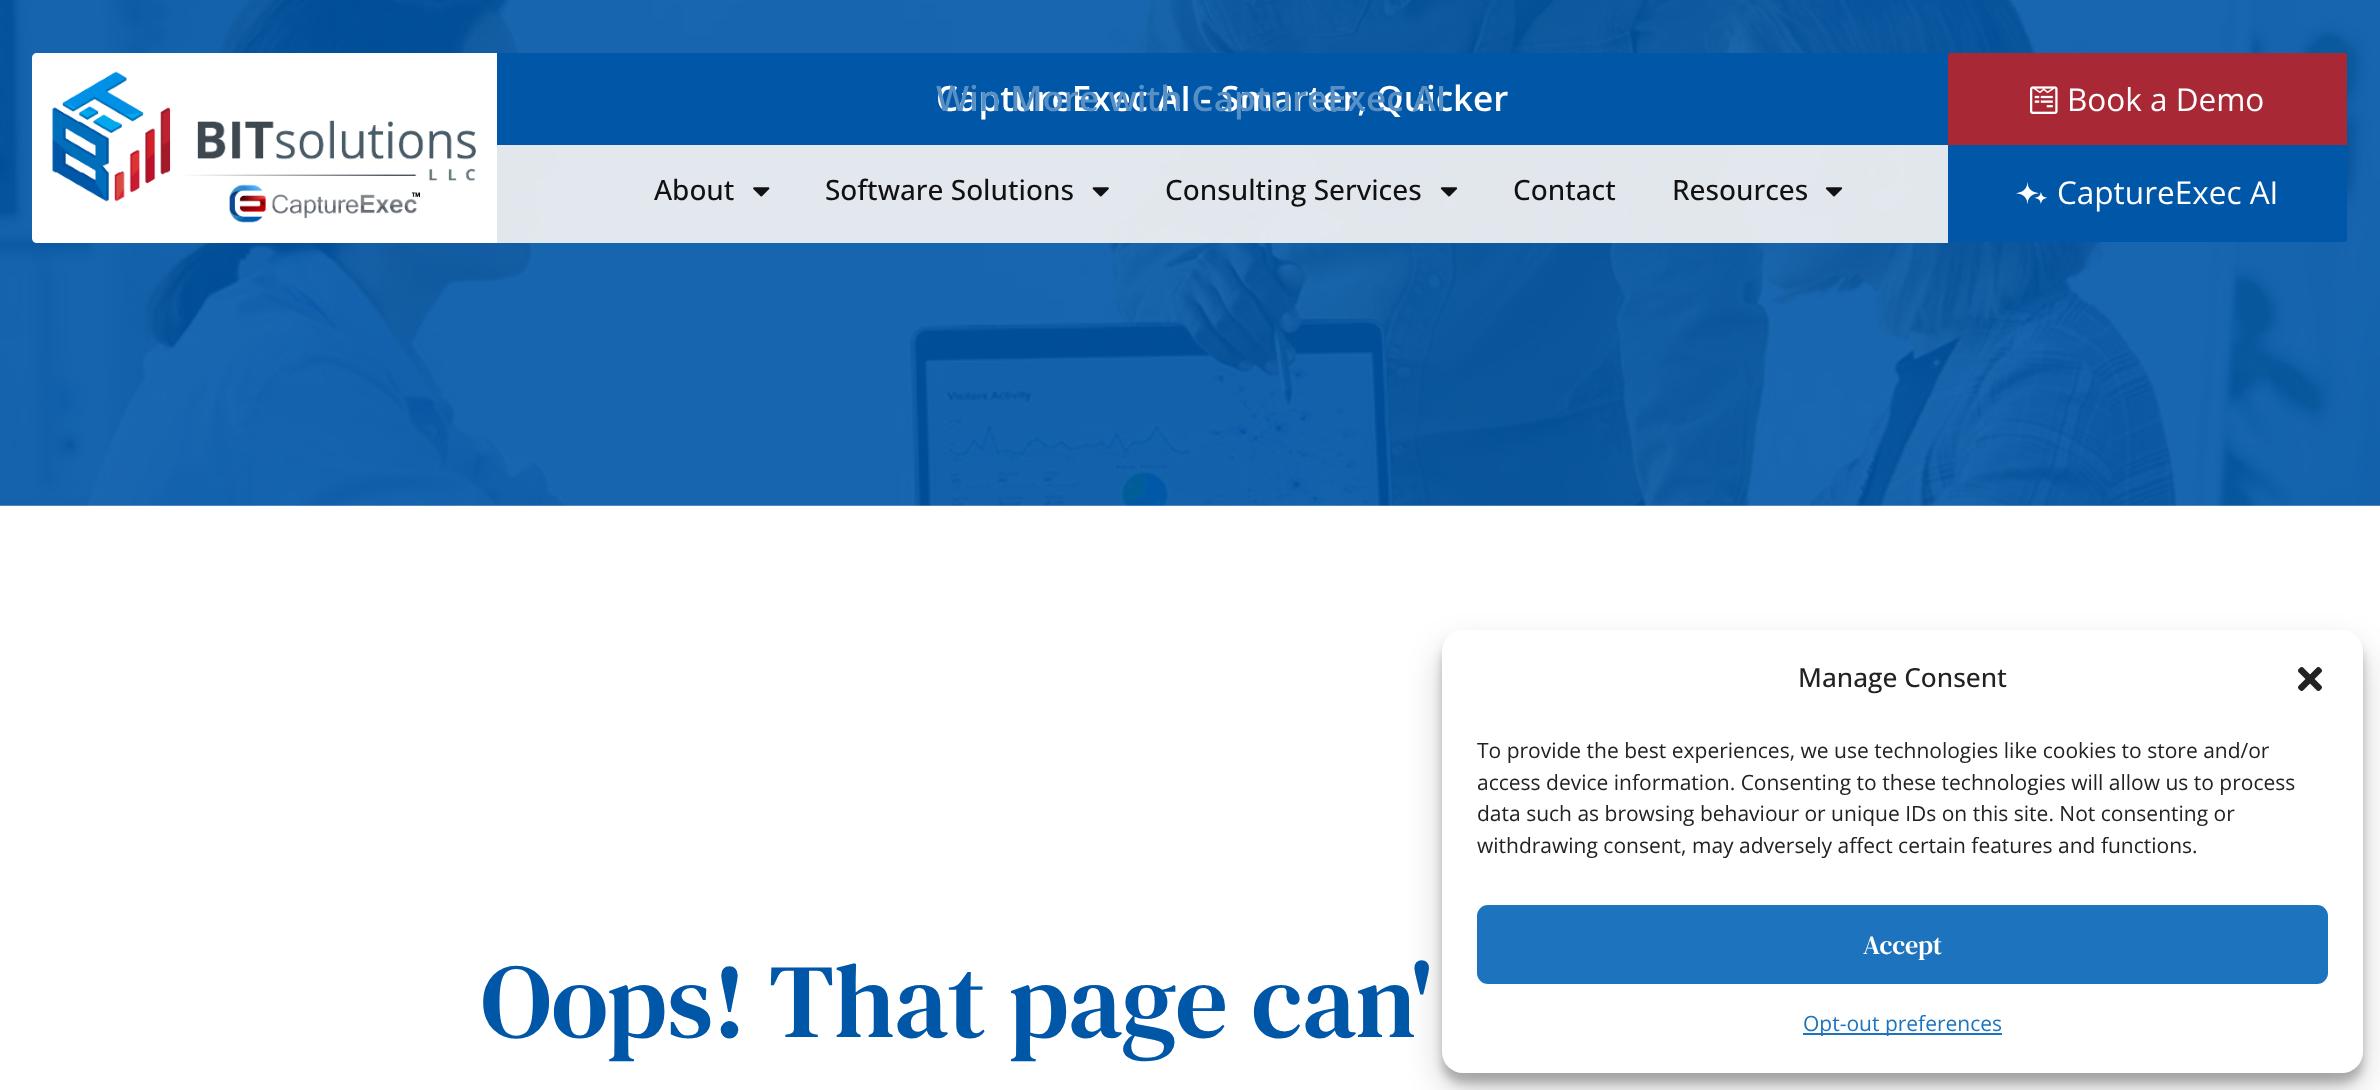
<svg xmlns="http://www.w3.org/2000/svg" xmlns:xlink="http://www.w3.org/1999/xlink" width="2380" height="1090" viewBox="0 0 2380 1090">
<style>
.cls-1{font:600 35px Open Sans;fill:#ffffff}
.cls-2{font:600 35px Open Sans;fill:#5890c5}
.cls-3{font:500 28px Open Sans;fill:#111111}
.cls-4{font:31.5px Open Sans;fill:#ffffff}
.cls-5{font:105px DM Serif Text;fill:#0056a7}
.cls-6{font:500 26.25px Open Sans;fill:#222222}
.cls-7{font:21px Open Sans;fill:#222222}
.cls-8{font:26.25px DM Serif Text;fill:#ffffff}
.cls-9{font:21px Open Sans;fill:#1e73be}
</style>
<rect width="100%" height="100%" fill="#ffffff"/>
<image xlink:href="image7.png" x="0" y="0" width="2380" height="506"/>
<path fill="#ffffff" d="M37 53H497V243H37C34 243 32 241 32 238V58C32 55 34 53 37 53Z"/>
<image xlink:href="image0.png" x="52" y="71" width="424" height="152"/>
<rect fill="#0056a7" x="497" y="53" width="1451" height="92"/>
<rect fill="#f2f2f2" fill-opacity="0.93" x="497" y="145" width="1451" height="98"/>
<image xlink:href="image1.png" x="753" y="187" width="17" height="10"/>
<image xlink:href="image2.png" x="1092" y="187" width="17" height="10"/>
<image xlink:href="image3.png" x="1440" y="187" width="18" height="10"/>
<image xlink:href="image4.png" x="1825" y="187" width="18" height="10"/>
<rect fill="#a82836" x="1948" y="53" width="399" height="94" rx="2"/>
<image xlink:href="image5.png" x="2030" y="86" width="28" height="28"/>
<rect fill="#0056a7" x="1948" y="145" width="399" height="97" rx="2"/>
<image xlink:href="image6.png" x="2016" y="182" width="32" height="22"/>
<rect fill="#000000" fill-opacity="0.23" filter="blur(5px)" x="1442" y="641" width="921" height="442" rx="21"/>
<rect fill="#000000" fill-opacity="0.19" filter="blur(17.5px)" x="1442" y="648" width="921" height="442" rx="21"/>
<rect fill="#ffffff" x="1442" y="630" width="921" height="443" rx="21"/>
<image xlink:href="image8.png" x="2298" y="667" width="24" height="24"/>
<rect fill="#1e73be" stroke="#1e73be" stroke-width="2" x="1478" y="906" width="849" height="77" rx="10"/>
<rect fill="#1e73be" x="1803" y="1033" width="199" height="2"/>
<text class="cls-1" x="936" y="111">CaptureExec AI - Smarter, Quicker</text>
<text class="cls-2" x="936" y="111">Win More with CaptureExec AI</text>
<text class="cls-3" x="654" y="200">About</text>
<text class="cls-3" x="825" y="200">Software Solutions</text>
<text class="cls-3" x="1165" y="200">Consulting Services</text>
<text class="cls-3" x="1513" y="200">Contact</text>
<text class="cls-3" x="1672" y="200">Resources</text>
<text class="cls-4" x="2067" y="111">Book a Demo</text>
<text class="cls-4" x="2057" y="204">CaptureExec AI</text>
<text class="cls-5" x="481" y="1037">Oops! That page can'</text>
<text class="cls-6" x="1798" y="687">Manage Consent</text>
<text class="cls-7"><tspan x="1477" y="758">To provide the best experiences, we use technologies like cookies to store and/or</tspan><tspan x="1477" y="790">access device information. Consenting to these technologies will allow us to process</tspan><tspan x="1477" y="821">data such as browsing behaviour or unique IDs on this site. Not consenting or</tspan><tspan x="1477" y="853">withdrawing consent, may adversely affect certain features and functions.</tspan></text>
<text class="cls-8" x="1863" y="954">Accept</text>
<text class="cls-9" x="1803" y="1031">Opt-out preferences</text>
</svg>
